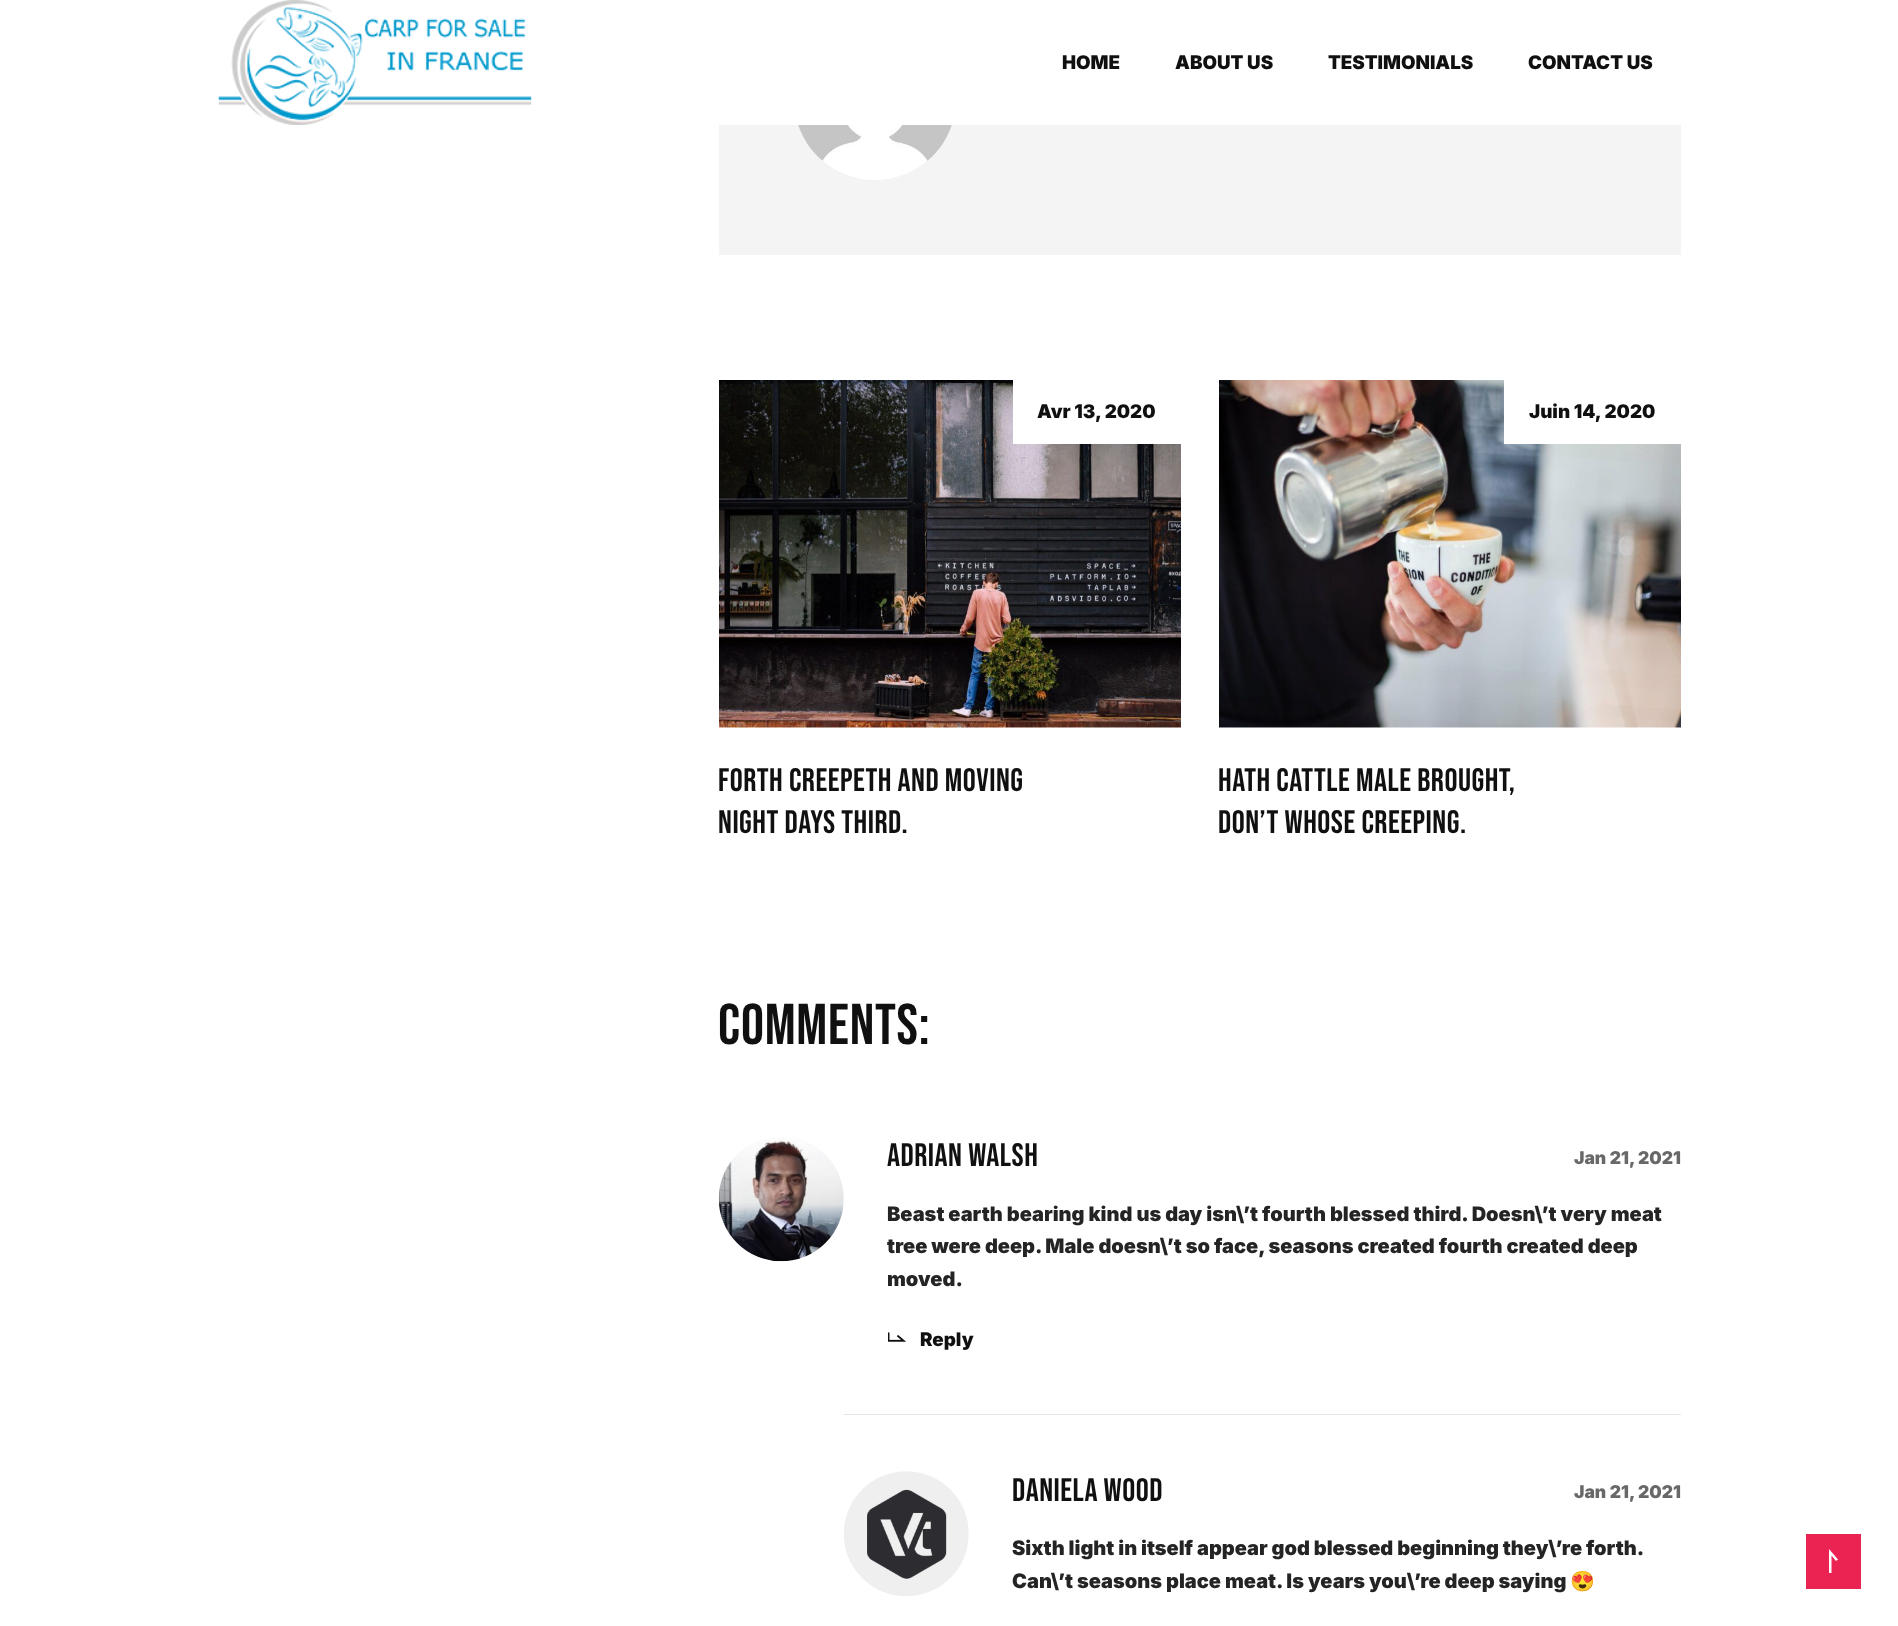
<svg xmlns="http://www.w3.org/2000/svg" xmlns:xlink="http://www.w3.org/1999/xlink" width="1898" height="1626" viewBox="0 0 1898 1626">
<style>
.cls-1{font:900 18.75px Inter;fill:#101010}
.cls-2{font:32.5px Bebas Neue;letter-spacing:0.5px;fill:#101010}
.cls-3{font:57.5px Bebas Neue;letter-spacing:0.75px;fill:#101010}
.cls-4{font:900 17.5px Inter;fill:#686868}
.cls-5{font:900 20px Inter;fill:#242424}
.cls-6{font:20px Noto Color Emoji;fill:#242424}
</style>
<rect width="100%" height="100%" fill="#ffffff"/>
<image xlink:href="image0.png" x="218" y="0" width="314" height="125"/>
<rect fill="#f4f4f4" x="719" y="125" width="962" height="130"/>
<image xlink:href="image1.png" x="798" y="125" width="154" height="55"/>
<image xlink:href="image2.png" x="719" y="380" width="462" height="348"/>
<rect fill="#ffffff" x="1013" y="380" width="168" height="64"/>
<image xlink:href="image3.png" x="1219" y="380" width="462" height="348"/>
<rect fill="#ffffff" x="1504" y="380" width="177" height="64"/>
<image xlink:href="image4.png" x="718" y="1137" width="126" height="125"/>
<image xlink:href="image5.png" x="888" y="1332" width="18" height="10"/>
<rect fill="#e5e5e5" x="844" y="1414" width="837" height="1"/>
<image xlink:href="image6.png" x="844" y="1471" width="125" height="125"/>
<rect fill="#eb2353" x="1806" y="1534" width="55" height="55"/>
<path fill="#ffffff" d="M1829 1573H1831.5V1555.5L1836 1561L1838 1559.5L1829 1549Z"/>
<text class="cls-1" x="1062" y="69">HOME</text>
<text class="cls-1" x="1175" y="69">ABOUT US</text>
<text class="cls-1" x="1328" y="69">TESTIMONIALS</text>
<text class="cls-1" x="1528" y="69">CONTACT US</text>
<text class="cls-1" x="1037" y="418">Avr 13, 2020</text>
<text class="cls-2"><tspan x="718" y="791">Forth creepeth and Moving</tspan><tspan x="718" y="833">night days third.</tspan></text>
<text class="cls-1" x="1529" y="418">Juin 14, 2020</text>
<text class="cls-2"><tspan x="1218" y="791">Hath cattle male brought,</tspan><tspan x="1218" y="833">don’t whose creeping.</tspan></text>
<text class="cls-3" x="718" y="1044">Comments:</text>
<text class="cls-2" x="887" y="1166">Adrian Walsh</text>
<text class="cls-4" x="1574" y="1164">Jan 21, 2021</text>
<text class="cls-5"><tspan x="887" y="1221">Beast earth bearing kind us day isn\’t fourth blessed third. Doesn\’t very meat</tspan><tspan x="887" y="1253">tree were deep. Male doesn\’t so face, seasons created fourth created deep</tspan><tspan x="887" y="1286">moved.</tspan></text>
<text class="cls-1" x="920" y="1346">Reply</text>
<text class="cls-2" x="1012" y="1501">Daniela Wood</text>
<text class="cls-4" x="1574" y="1498">Jan 21, 2021</text>
<text class="cls-5"><tspan x="1012" y="1555" word-spacing="-0.1">Sixth light in itself appear god blessed beginning they\’re forth.</tspan><tspan x="1012" y="1588">Can\’t seasons place meat. Is years you\’re deep saying</tspan></text>
<text class="cls-6" x="1570" y="1588">😍</text>
</svg>
